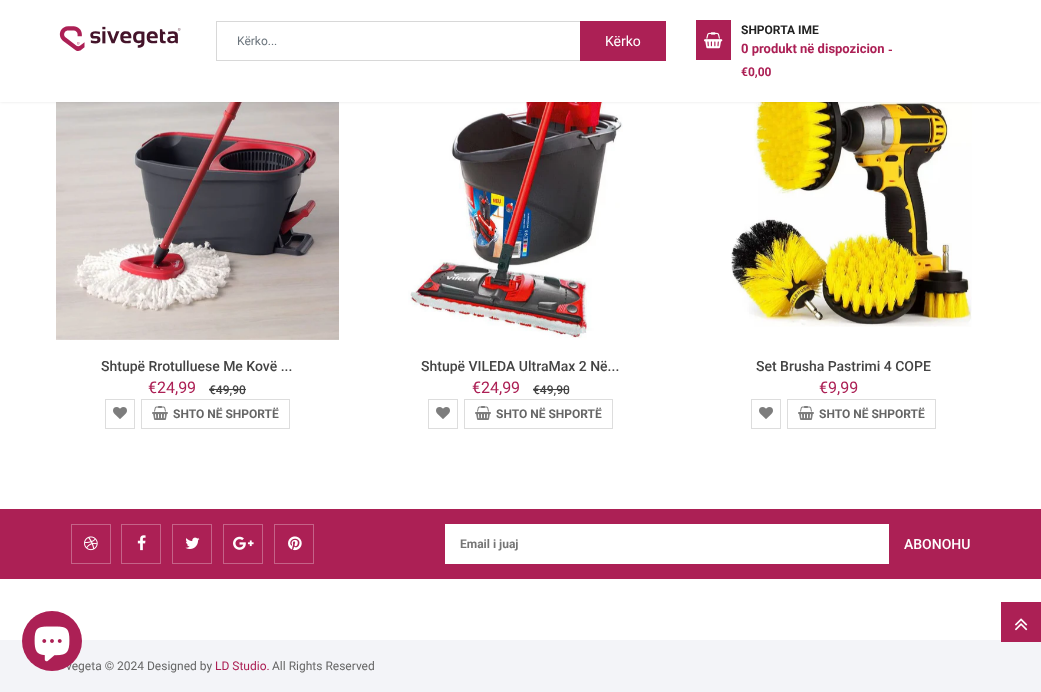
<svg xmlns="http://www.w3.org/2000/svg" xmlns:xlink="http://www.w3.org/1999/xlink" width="1041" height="692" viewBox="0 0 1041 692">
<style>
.cls-1{font:12px Roboto;fill:#6c757d}
.cls-2{font:14px Roboto;fill:#ffffff}
.cls-3{font:bold 12px Roboto;fill:#222222}
.cls-4{font:bold 13px Roboto;fill:#ac2055}
.cls-5{font:bold 12px Roboto;fill:#ac2055}
.cls-6{font:500 14px Roboto;fill:#444444}
.cls-7{font:16px Roboto;fill:#ac2055}
.cls-8{font:500 12px Roboto;fill:#444444}
.cls-9{font:bold 12px Roboto;fill:#666666}
.cls-10{font:bold 12px Roboto;fill:#757575}
.cls-11{font:500 14px Roboto;fill:#ffffff}
.cls-12{font:12px Roboto;fill:#666666}
.cls-13{font:12px Roboto;fill:#ac2055}
</style>
<rect width="100%" height="100%" fill="#ffffff"/>
<image xlink:href="image3.png" x="56" y="102" width="283" height="238"/>
<image xlink:href="image6.png" x="408" y="102" width="215" height="238"/>
<image xlink:href="image7.png" x="730" y="102" width="242" height="225"/>
<rect fill="#0c0d0e" fill-opacity="0.1" filter="blur(1.5px)" x="0" y="0" width="1041" height="102"/>
<rect fill="#ffffff" x="0" y="0" width="1041" height="102"/>
<image xlink:href="image1.png" x="59" y="26" width="122" height="25"/>
<rect fill="none" stroke="#d8d8d8" x="216.5" y="21.5" width="449" height="39"/>
<rect fill="#ac2055" x="580" y="21" width="86" height="40"/>
<rect fill="#ac2055" x="696" y="20" width="35" height="40"/>
<image xlink:href="image2.png" x="704" y="32" width="19" height="17"/>
<rect fill="#444444" x="209" y="389" width="37" height="1"/>
<rect fill="none" stroke="#dddddd" x="105.5" y="399.5" width="29" height="29"/>
<image xlink:href="image4.png" x="113" y="407" width="14" height="12"/>
<rect fill="none" stroke="#dddddd" x="141.5" y="399.5" width="148" height="29"/>
<image xlink:href="image5.png" x="152" y="406" width="16" height="14"/>
<rect fill="#444444" x="533" y="389" width="36" height="1"/>
<rect fill="none" stroke="#dddddd" x="428.5" y="399.5" width="29" height="29"/>
<image xlink:href="image4.png" x="436" y="407" width="14" height="12"/>
<rect fill="none" stroke="#dddddd" x="464.5" y="399.5" width="148" height="29"/>
<image xlink:href="image5.png" x="475" y="406" width="16" height="14"/>
<rect fill="none" stroke="#dddddd" x="751.5" y="399.5" width="29" height="29"/>
<image xlink:href="image4.png" x="759" y="407" width="14" height="12"/>
<rect fill="none" stroke="#dddddd" x="787.5" y="399.5" width="148" height="29"/>
<image xlink:href="image5.png" x="798" y="406" width="16" height="14"/>
<rect fill="#ac2055" x="0" y="509" width="1041" height="70"/>
<rect fill="none" stroke="#c56388" x="71.5" y="524.5" width="39" height="39"/>
<image xlink:href="image8.png" x="84" y="536" width="14" height="15"/>
<rect fill="none" stroke="#c56388" x="121.5" y="524.5" width="39" height="39"/>
<image xlink:href="image9.png" x="137" y="535" width="9" height="16"/>
<rect fill="none" stroke="#c56388" x="172.5" y="524.5" width="39" height="39"/>
<image xlink:href="image10.png" x="185" y="537" width="15" height="12"/>
<rect fill="none" stroke="#c56388" x="223.5" y="524.5" width="39" height="39"/>
<image xlink:href="image11.png" x="233" y="536" width="21" height="14"/>
<rect fill="none" stroke="#c56388" x="274.5" y="524.5" width="39" height="39"/>
<image xlink:href="image12.png" x="288" y="536" width="14" height="15"/>
<rect fill="#ffffff" x="445" y="524" width="444" height="40"/>
<rect fill="#f3f4f8" x="0" y="640" width="1041" height="52"/>
<rect fill="#ac2055" x="1001" y="602" width="40" height="40"/>
<image xlink:href="image13.png" x="1015" y="618" width="13" height="13"/>
<text class="cls-1" x="237" y="45">Kërko...</text>
<text class="cls-2" x="605" y="46">Kërko</text>
<text class="cls-3" x="741" y="34">SHPORTA IME</text>
<text class="cls-4" x="741" y="53">0 produkt në dispozicion</text>
<text class="cls-5" x="888" y="54">-</text>
<text class="cls-5" x="741" y="76">€0,00</text>
<text class="cls-6" x="101" y="371">Shtupë Rrotulluese Me Kovë ...</text>
<text class="cls-7" x="148" y="393">€24,99</text>
<text class="cls-8" x="209" y="394">€49,90</text>
<text class="cls-9" x="173" y="418">SHTO NË SHPORTË</text>
<text class="cls-6" x="421" y="371">Shtupë VILEDA UltraMax 2 Në...</text>
<text class="cls-7" x="472" y="393">€24,99</text>
<text class="cls-8" x="533" y="394">€49,90</text>
<text class="cls-9" x="496" y="418">SHTO NË SHPORTË</text>
<text class="cls-6" x="756" y="371">Set Brusha Pastrimi 4 COPE</text>
<text class="cls-7" x="819" y="393">€9,99</text>
<text class="cls-9" x="819" y="418">SHTO NË SHPORTË</text>
<text class="cls-10" x="460" y="548">Email i juaj</text>
<text class="cls-11" x="904" y="549">ABONOHU</text>
<text class="cls-12" x="66" y="670">vegeta © 2024 Designed by</text>
<circle fill="#ac2055" cx="52" cy="641" r="30"/>
<image xlink:href="image0.png" x="34" y="626" width="36" height="36"/>
<text class="cls-13" x="215" y="670">LD Studio.</text>
<text class="cls-12" x="272" y="670">All Rights Reserved</text>
</svg>
